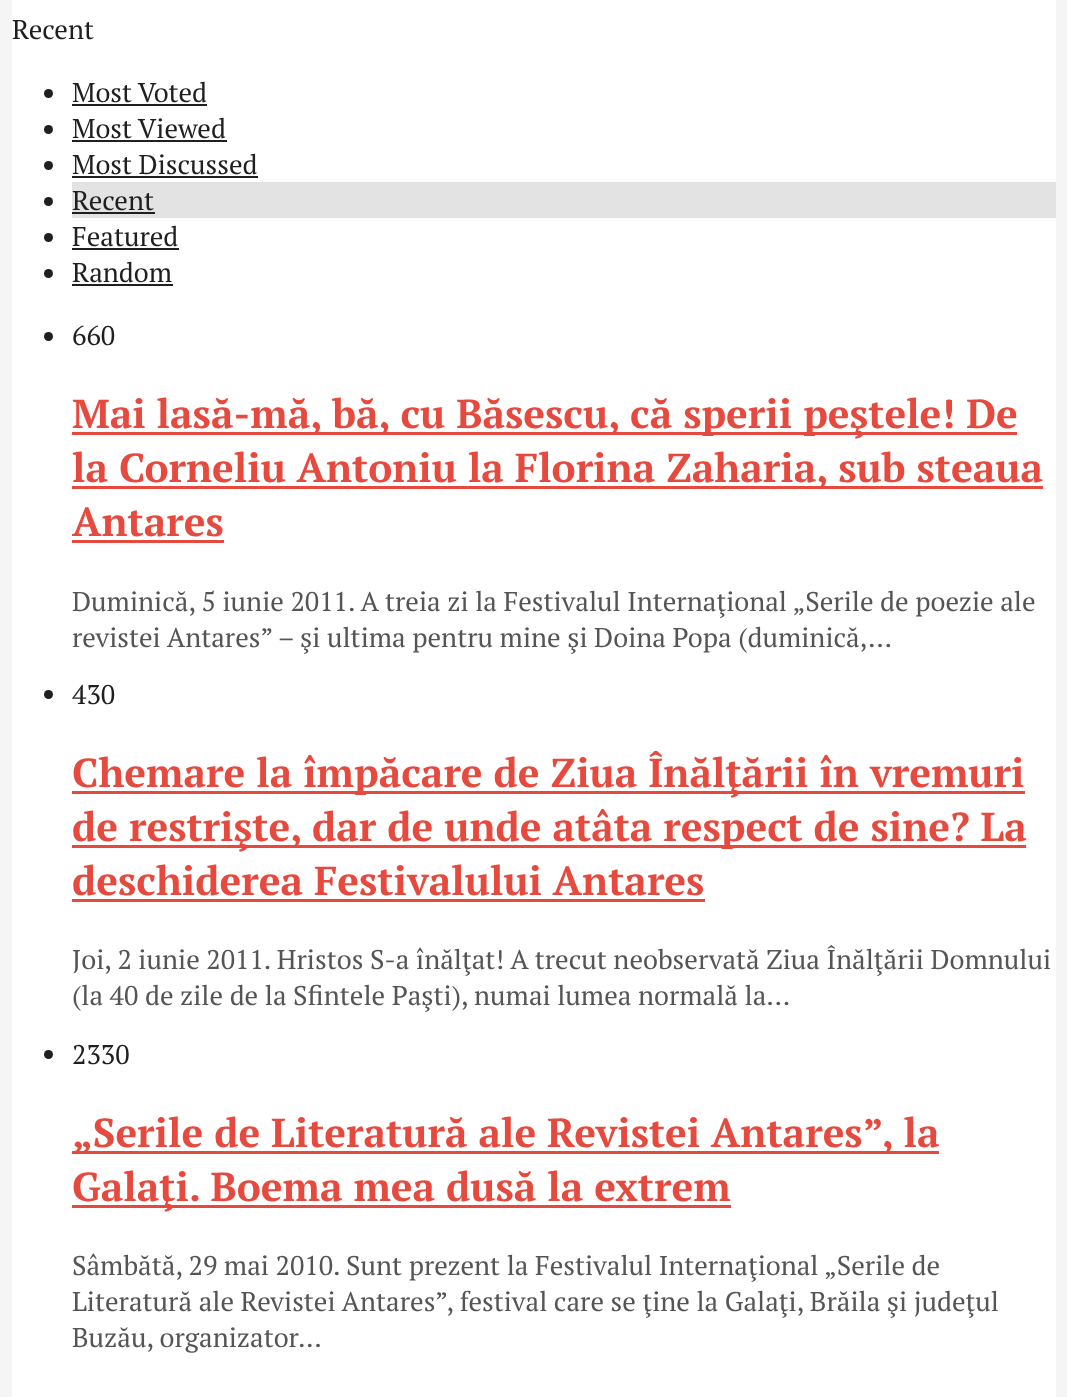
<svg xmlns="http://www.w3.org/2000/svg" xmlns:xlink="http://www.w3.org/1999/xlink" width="1067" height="1397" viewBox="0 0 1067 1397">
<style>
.cls-1{font:27px PT Serif;fill:#1f1f1f}
.cls-2{font:bold 40.5px PT Serif;fill:#e64a3e}
.cls-3{font:27px PT Serif;fill:#555555}
</style>
<rect width="100%" height="100%" fill="#f5f5f5"/>
<rect fill="#ffffff" x="12" y="0" width="1044" height="1397"/>
<circle fill="#1f1f1f" cx="48.5" cy="93.5" r="4.5"/>
<rect fill="#1f1f1f" x="72" y="104" width="135" height="2"/>
<circle fill="#1f1f1f" cx="48.5" cy="129.5" r="4.5"/>
<rect fill="#1f1f1f" x="72" y="140" width="155" height="2"/>
<circle fill="#1f1f1f" cx="48.5" cy="165.5" r="4.5"/>
<rect fill="#1f1f1f" x="72" y="176" width="186" height="2"/>
<rect fill="#e3e3e3" x="72" y="182" width="984" height="36"/>
<circle fill="#1f1f1f" cx="48.5" cy="201.5" r="4.5"/>
<rect fill="#1f1f1f" x="72" y="212" width="83" height="2"/>
<circle fill="#1f1f1f" cx="48.5" cy="237.5" r="4.5"/>
<rect fill="#1f1f1f" x="72" y="248" width="107" height="2"/>
<circle fill="#1f1f1f" cx="48.5" cy="273.5" r="4.5"/>
<rect fill="#1f1f1f" x="72" y="284" width="101" height="2"/>
<circle fill="#1f1f1f" cx="48.5" cy="336.5" r="4.5"/>
<rect fill="#e64a3e" x="72" y="432" width="945" height="3"/>
<rect fill="#e64a3e" x="72" y="486" width="971" height="3"/>
<rect fill="#e64a3e" x="72" y="540" width="152" height="3"/>
<circle fill="#1f1f1f" cx="48.5" cy="694.5" r="4.5"/>
<rect fill="#e64a3e" x="72" y="791" width="953" height="3"/>
<rect fill="#e64a3e" x="72" y="845" width="954" height="3"/>
<rect fill="#e64a3e" x="72" y="899" width="633" height="3"/>
<circle fill="#1f1f1f" cx="48.5" cy="1054.5" r="4.5"/>
<rect fill="#e64a3e" x="72" y="1151" width="867" height="3"/>
<rect fill="#e64a3e" x="72" y="1205" width="659" height="3"/>
<text class="cls-1" x="12" y="39">Recent</text>
<text class="cls-1"><tspan x="72" y="102">Most Voted</tspan><tspan x="72" y="138">Most Viewed</tspan><tspan x="72" y="174">Most Discussed</tspan><tspan x="72" y="210">Recent</tspan><tspan x="72" y="246">Featured</tspan><tspan x="72" y="282">Random</tspan></text>
<text class="cls-1" x="72" y="345">660</text>
<text class="cls-2"><tspan x="72" y="428">Mai lasă-mă, bă, cu Băsescu, că sperii peştele! De</tspan><tspan x="72" y="482">la Corneliu Antoniu la Florina Zaharia, sub steaua</tspan><tspan x="72" y="536">Antares</tspan></text>
<text class="cls-3"><tspan x="72" y="611">Duminică, 5 iunie 2011. A treia zi la Festivalul Internaţional „Serile de poezie ale</tspan><tspan x="72" y="647">revistei Antares” – şi ultima pentru mine şi Doina Popa (duminică,...</tspan></text>
<text class="cls-1" x="72" y="704">430</text>
<text class="cls-2"><tspan x="72" y="787">Chemare la împăcare de Ziua Înălţării în vremuri</tspan><tspan x="72" y="841">de restrişte, dar de unde atâta respect de sine? La</tspan><tspan x="72" y="895">deschiderea Festivalului Antares</tspan></text>
<text class="cls-3"><tspan x="72" y="969">Joi, 2 iunie 2011. Hristos S-a înălţat! A trecut neobservată Ziua Înălţării Domnului</tspan><tspan x="72" y="1005">(la 40 de zile de la Sfintele Paşti), numai lumea normală la...</tspan></text>
<text class="cls-1" x="72" y="1064">2330</text>
<text class="cls-2"><tspan x="72" y="1147">„Serile de Literatură ale Revistei Antares”, la</tspan><tspan x="72" y="1201">Galaţi. Boema mea dusă la extrem</tspan></text>
<text class="cls-3"><tspan x="72" y="1275">Sâmbătă, 29 mai 2010. Sunt prezent la Festivalul Internaţional „Serile de</tspan><tspan x="72" y="1311">Literatură ale Revistei Antares”, festival care se ţine la Galaţi, Brăila şi judeţul</tspan><tspan x="72" y="1347">Buzău, organizator...</tspan></text>
</svg>
